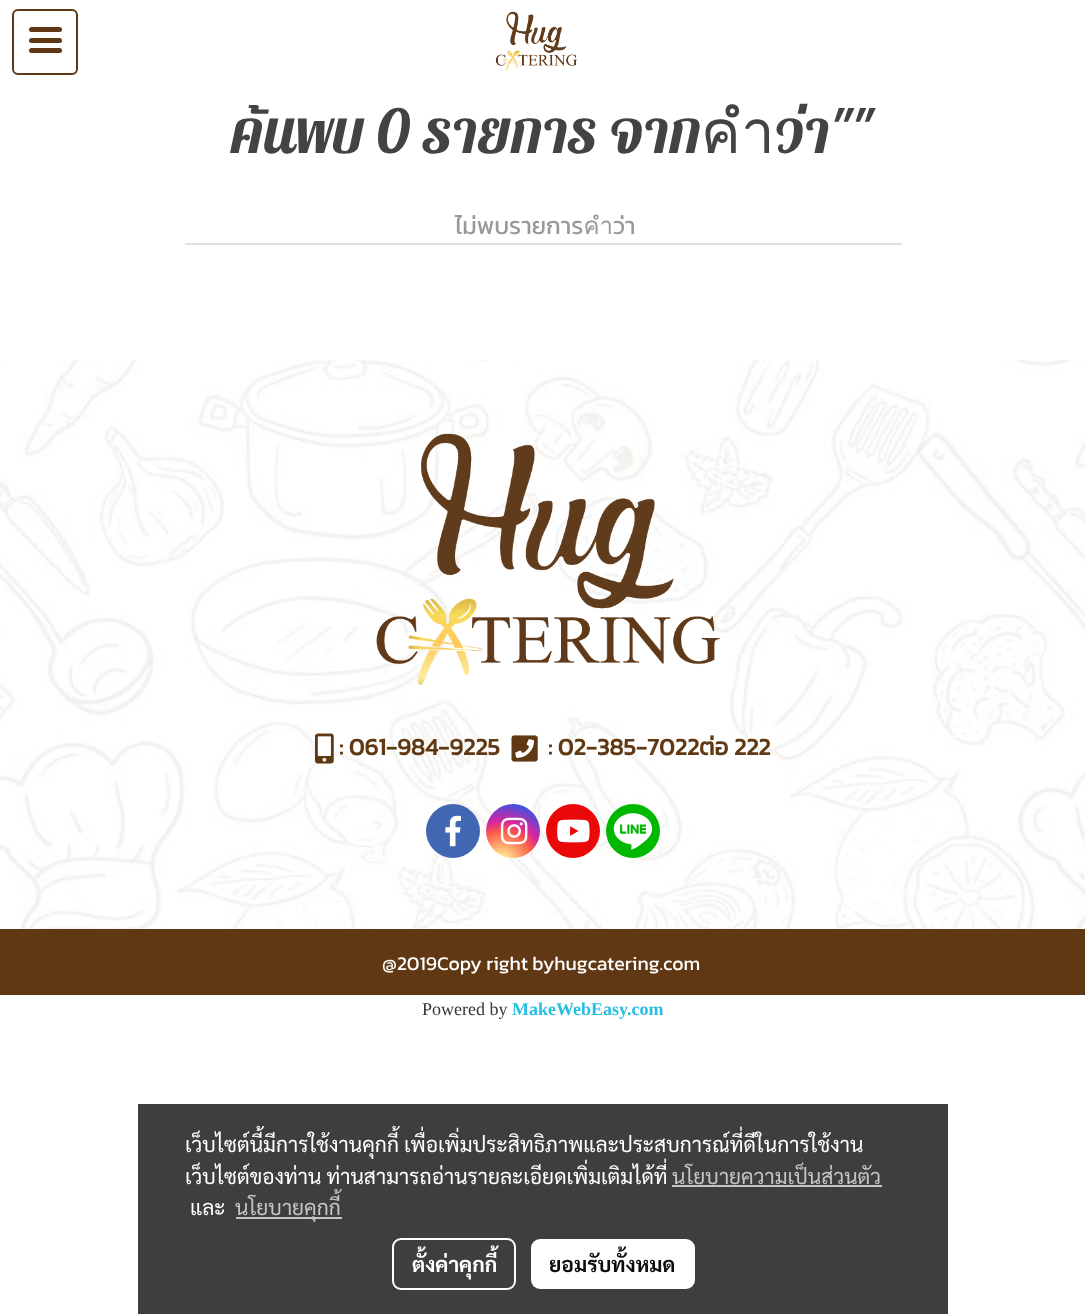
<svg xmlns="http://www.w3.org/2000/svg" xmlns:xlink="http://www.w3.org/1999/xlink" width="1085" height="1314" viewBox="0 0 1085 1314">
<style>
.cls-1{font:60px Pattaya;fill:#434343}
.cls-2{font:24px Kanit;fill:#999999}
.cls-3{font:bold 24px Kanit;fill:#603813}
.cls-4{font:19.5px Kanit;fill:#ffffff}
.cls-5{font:18px Liberation Serif;fill:#353535}
.cls-6{font:bold 18px Liberation Serif;fill:#28bee3}
.cls-7{font:21px Sarabun;fill:#ffffff}
.cls-8{font:21px Sarabun;fill:#c5c5c5}
.cls-9{font:bold 21px Sarabun;fill:#ffffff}
.cls-10{font:bold 21px Sarabun;fill:#0d0d0d}
</style>
<defs>
<radialGradient id="g1" gradientUnits="userSpaceOnUse" cx="502" cy="862" r="69"><stop offset="0" stop-color="#fdf497"/><stop offset="0.05" stop-color="#fdf497"/><stop offset="0.45" stop-color="#fd5949"/><stop offset="0.6" stop-color="#d6249f"/><stop offset="0.9" stop-color="#285aeb"/></radialGradient>
</defs>
<rect width="100%" height="100%" fill="#ffffff"/>
<rect fill="none" stroke="#603813" stroke-width="2" x="13" y="10" width="64" height="64" rx="5"/>
<rect fill="#603813" x="29" y="38" width="33" height="5" rx="2.5"/>
<rect fill="#603813" x="29" y="27" width="33" height="5" rx="2.5"/>
<rect fill="#603813" x="29" y="48" width="33" height="5" rx="2.5"/>
<image xlink:href="image0.png" x="495" y="11" width="83" height="60"/>
<rect fill="#dee2e6" x="185" y="243" width="717" height="2"/>
<image xlink:href="image1.png" x="0" y="360" width="1085" height="569"/>
<image xlink:href="image2.png" x="376" y="433" width="344" height="252"/>
<image xlink:href="image3.png" x="315" y="733" width="19" height="31"/>
<image xlink:href="image4.png" x="511" y="735" width="27" height="27"/>
<circle fill="#4267b2" cx="453" cy="831" r="27"/>
<image xlink:href="image5.png" x="445" y="815" width="16" height="32"/>
<circle fill="url(#g1)" cx="513" cy="831" r="27"/>
<image xlink:href="image6.png" x="500" y="817" width="28" height="28"/>
<circle fill="#eb0808" cx="573" cy="831" r="27"/>
<image xlink:href="image7.png" x="557" y="819" width="33" height="24"/>
<circle fill="#00b800" cx="633" cy="831" r="27"/>
<image xlink:href="image8.png" x="613" y="804" width="39" height="54"/>
<rect fill="#603813" x="0" y="929" width="1085" height="66"/>
<rect fill="#3e3e3e" x="138" y="1104" width="810" height="210"/>
<rect fill="#c5c5c5" x="672" y="1185" width="210" height="2"/>
<rect fill="#c5c5c5" x="236" y="1217" width="106" height="2"/>
<rect fill="none" stroke="#ffffff" stroke-width="2" x="393" y="1239" width="122" height="50" rx="8"/>
<rect fill="#ffffff" x="531" y="1239" width="164" height="50" rx="9"/>
<text class="cls-1" x="230" y="153">ค้นพบ 0 รายการ จากคำว่า""</text>
<text class="cls-2" x="455" y="234">ไม่พบรายการคำว่า</text>
<text class="cls-3" x="339" y="755">: 061-984-9225</text>
<text class="cls-3" x="548" y="755">: 02-385-7022ต่อ 222</text>
<text class="cls-4" x="382" y="970">@2019Copy right byhugcatering.com</text>
<text class="cls-5" x="422" y="1015">Powered by</text>
<text class="cls-6" x="512" y="1015">MakeWebEasy.com</text>
<text class="cls-7"><tspan x="185" y="1152">เว็บไซต์นี้มีการใช้งานคุกกี้ เพื่อเพิ่มประสิทธิภาพและประสบการณ์ที่ดีในการใช้งาน</tspan><tspan x="185" y="1184">เว็บไซต์ของท่าน ท่านสามารถอ่านรายละเอียดเพิ่มเติมได้ที่</tspan></text>
<text class="cls-8" x="672" y="1184">นโยบายความเป็นส่วนตัว</text>
<text class="cls-7" x="190" y="1215">และ</text>
<text class="cls-8" x="235" y="1215">นโยบายคุกกี้</text>
<text class="cls-9" x="412" y="1272">ตั้งค่าคุกกี้</text>
<text class="cls-10" x="549" y="1272">ยอมรับทั้งหมด</text>
</svg>
